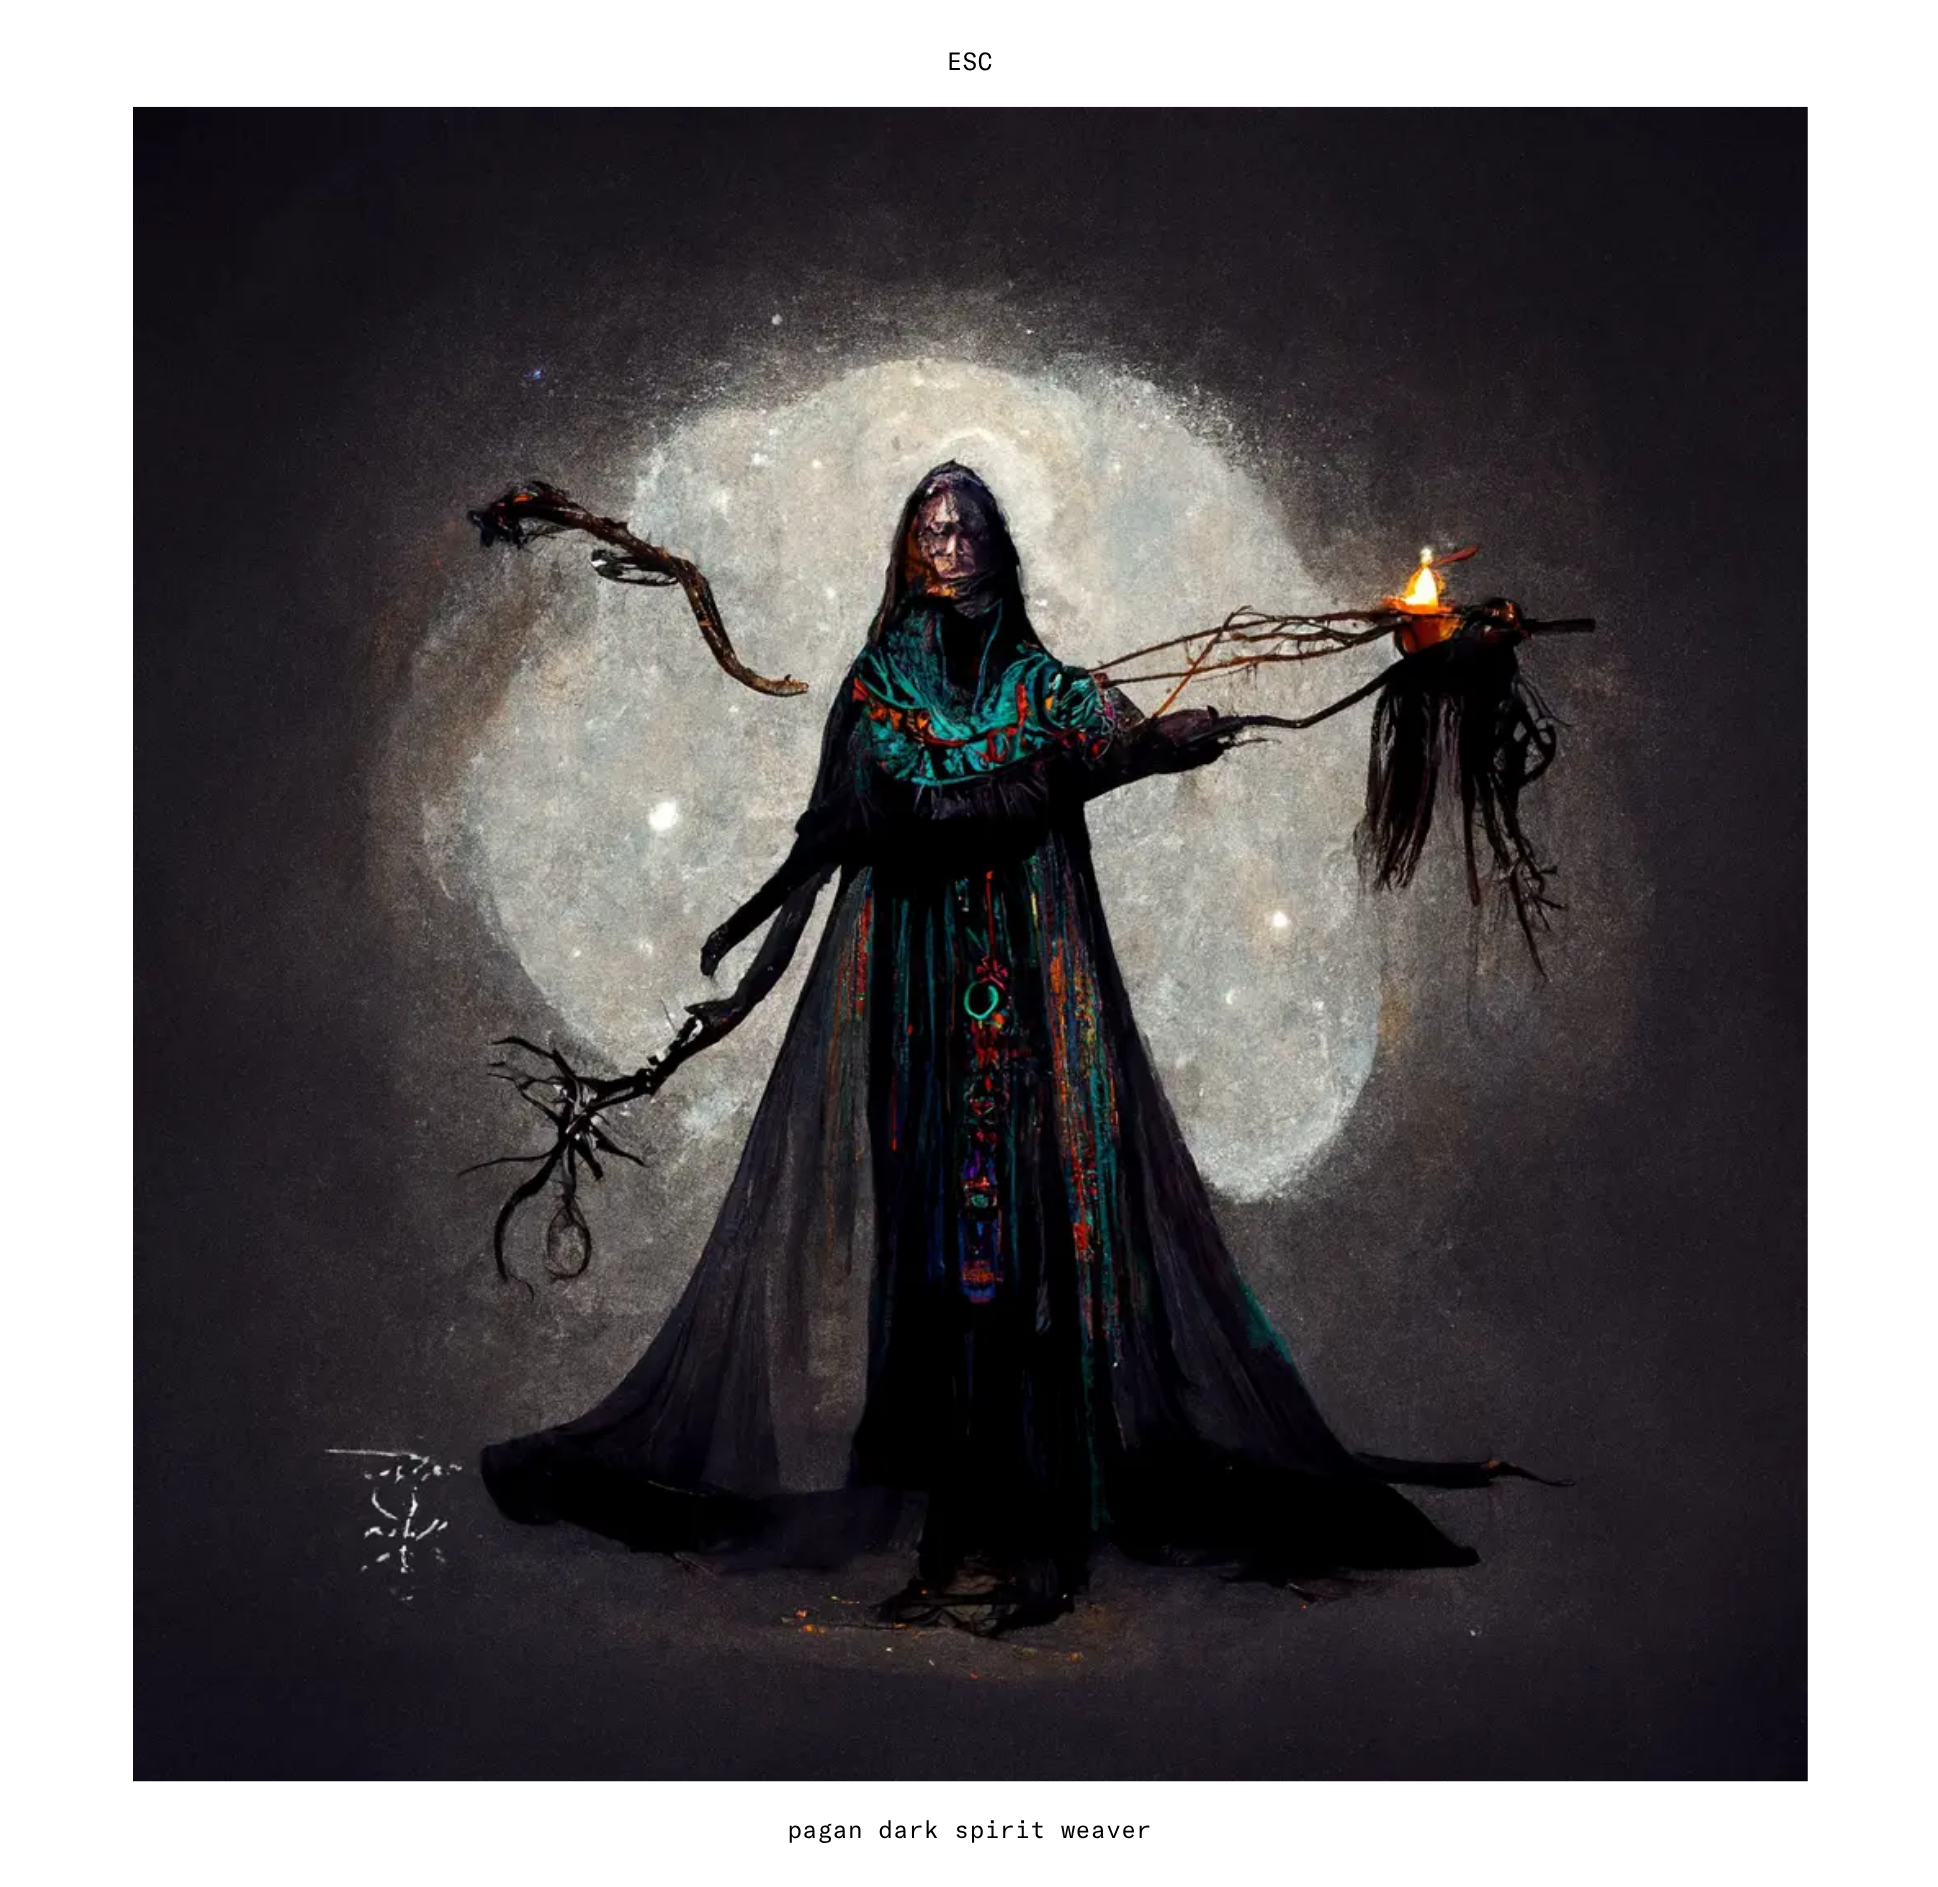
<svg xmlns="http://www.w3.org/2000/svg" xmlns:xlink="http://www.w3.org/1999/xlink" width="1938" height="1887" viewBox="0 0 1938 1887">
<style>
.cls-1{font:24.5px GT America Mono;fill:#000000}
</style>
<rect width="100%" height="100%" fill="#ffffff"/>
<image xlink:href="image0.png" x="133" y="106" width="1675" height="1676"/>
<text class="cls-1" x="947" y="70">ESC</text>
<text class="cls-1" x="787" y="1838">pagan dark spirit weaver</text>
</svg>
